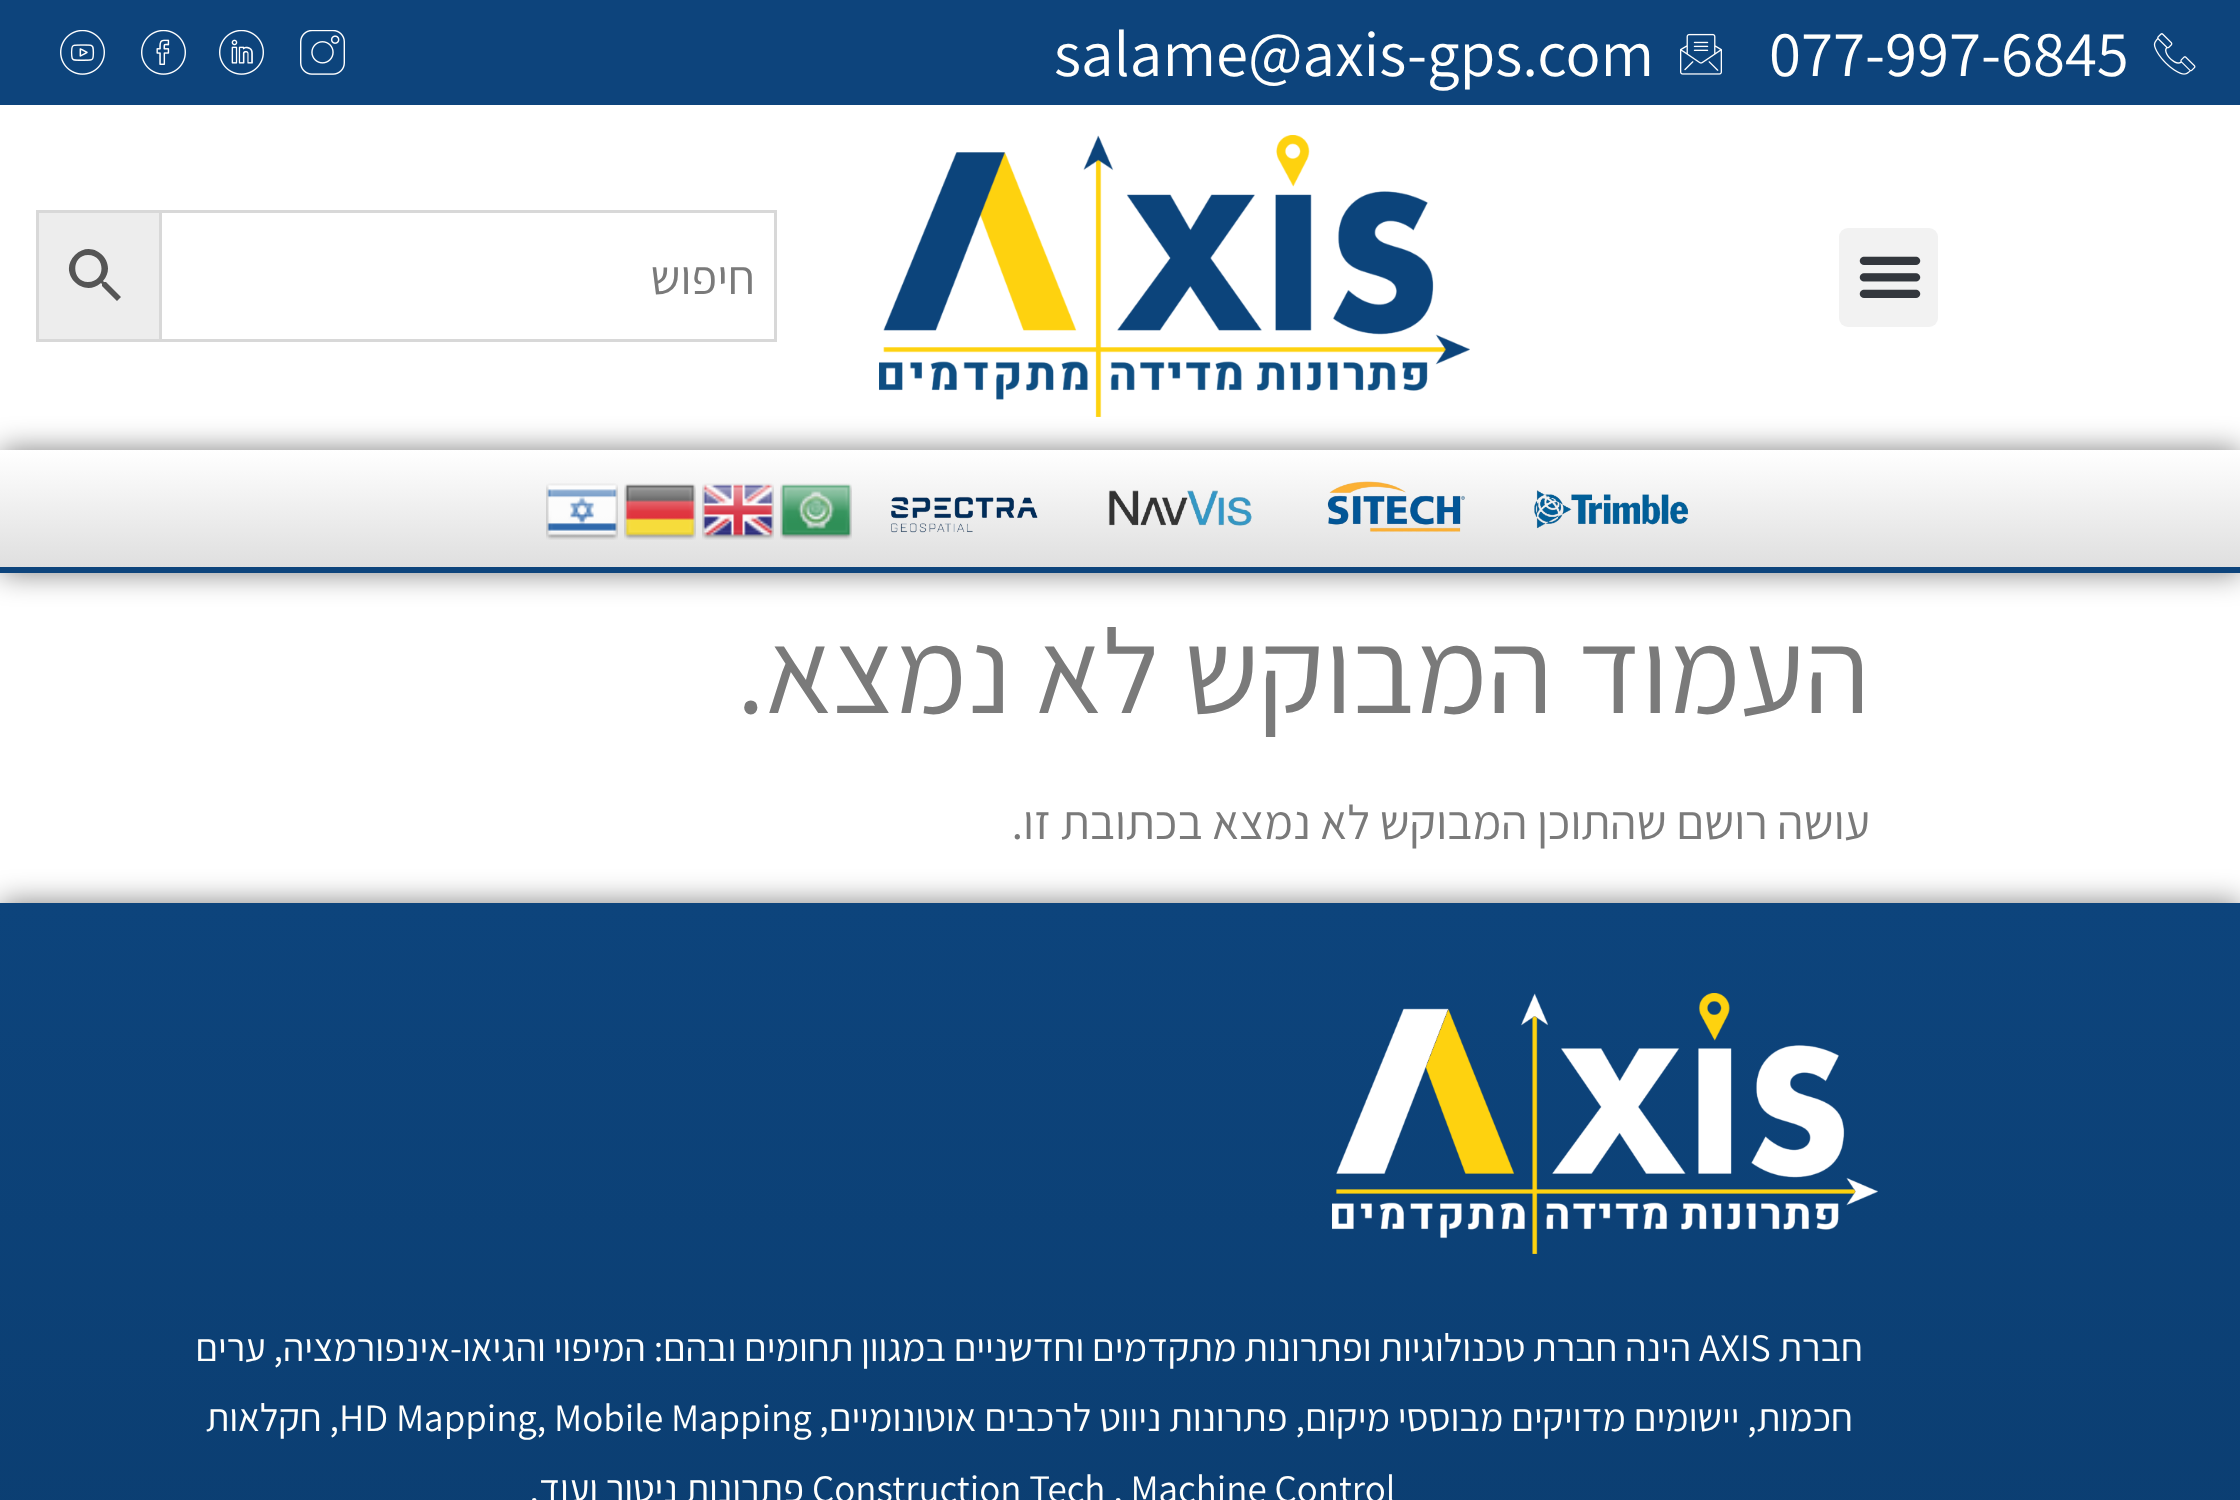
<svg xmlns="http://www.w3.org/2000/svg" xmlns:xlink="http://www.w3.org/1999/xlink" width="2240" height="1500" viewBox="0 0 2240 1500">
<style>
.cls-1{font:65px Assistant;fill:#fffffd}
.cls-2{font:48px Assistant;direction:rtl;fill:#7a7a7a}
.cls-3{font:120px Assistant;direction:rtl;fill:#7a7a7a}
.cls-4{font:39px Assistant;direction:rtl;fill:#fffffd}
.cls-5{font:39px Assistant;fill:#fffffd}
</style>
<defs>
<linearGradient id="g1" gradientUnits="userSpaceOnUse" x1="1121" y1="450" x2="1121" y2="567"><stop offset="0" stop-color="#ffffff"/><stop offset="1" stop-color="#dfdfdf"/></linearGradient>
<linearGradient id="g2" gradientUnits="userSpaceOnUse" x1="1120" y1="903" x2="1121" y2="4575"><stop offset="0" stop-color="#0d447c"/><stop offset="1" stop-color="#032342"/></linearGradient>
</defs>
<rect width="100%" height="100%" fill="#ffffff"/>
<rect fill="#0d447c" x="0" y="0" width="2240" height="105"/>
<image xlink:href="image0.png" x="2153" y="33" width="43" height="42"/>
<image xlink:href="image1.png" x="1680" y="33" width="42" height="42"/>
<image xlink:href="image2.png" x="300" y="30" width="45" height="45"/>
<image xlink:href="image3.png" x="219" y="30" width="45" height="45"/>
<image xlink:href="image4.png" x="141" y="30" width="45" height="45"/>
<image xlink:href="image5.png" x="60" y="30" width="45" height="45"/>
<rect fill="#f2f2f2" x="1839" y="228" width="99" height="99" rx="9"/>
<image xlink:href="image6.png" x="1859" y="256" width="62" height="42"/>
<image xlink:href="image7.png" x="879" y="135" width="591" height="282"/>
<rect fill="#ededed" stroke="#d8d8d8" stroke-width="3" x="37.5" y="211.5" width="123" height="129"/>
<rect fill="none" stroke="#d8d8d8" stroke-width="3" x="160.5" y="211.5" width="615" height="129"/>
<path fill="#555555" d="M106 282H104L103 281C119 263 93 237 75 255C57 273 83 299 101 283L102 284V286L117 301L121 297ZM88 282C71 282 71 255 88 255C106 255 106 282 88 282Z"/>
<rect fill="#000000" fill-opacity="0.5" filter="blur(15px)" x="0" y="450" width="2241" height="123"/>
<rect fill="url(#g1)" x="0" y="450" width="2240" height="117"/>
<rect fill="#0d447c" x="0" y="567" width="2240" height="6"/>
<image xlink:href="image8.png" x="1534" y="490" width="155" height="39"/>
<image xlink:href="image9.png" x="1327" y="481" width="138" height="51"/>
<image xlink:href="image10.png" x="1108" y="490" width="144" height="36"/>
<image xlink:href="image11.png" x="891" y="496" width="147" height="37"/>
<image xlink:href="image12.png" x="780" y="483" width="72" height="57"/>
<image xlink:href="image13.png" x="702" y="483" width="72" height="57"/>
<image xlink:href="image14.png" x="624" y="483" width="72" height="57"/>
<image xlink:href="image15.png" x="546" y="483" width="72" height="57"/>
<rect fill="#000000" fill-opacity="0.5" filter="blur(15px)" x="0" y="903" width="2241" height="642"/>
<rect fill="url(#g2)" x="0" y="903" width="2240" height="597"/>
<image xlink:href="image16.png" x="1332" y="993" width="546" height="261"/>
<text class="cls-1" x="1769" y="76">077-997-6845</text>
<text class="cls-1" x="1054" y="76">salame@axis-gps.com</text>
<text class="cls-2" x="755" y="294">חיפוש</text>
<text class="cls-3" x="1870" y="713">העמוד המבוקש לא נמצא.</text>
<text class="cls-2" x="1870" y="839">עושה רושם שהתוכן המבוקש לא נמצא בכתובת זו.</text>
<text class="cls-4" x="1863" y="1361">חברת</text>
<text class="cls-5" x="1699" y="1361">AXIS</text>
<text class="cls-4" x="1691" y="1361">הינה חברת טכנולוגיות ופתרונות מתקדמים וחדשניים במגוון תחומים ובהם: המיפוי והגיאו-אינפורמציה, ערים</text>
<text class="cls-4" x="1853" y="1431">חכמות, יישומים מדויקים מבוססי מיקום, פתרונות ניווט לרכבים אוטונומיים,</text>
<text class="cls-5" x="339" y="1431">HD Mapping, Mobile Mapping</text>
<text class="cls-4" x="339" y="1431">, חקלאות</text>
<text class="cls-5" x="812" y="1502">Construction Tech , Machine Control</text>
<text class="cls-4" x="804" y="1502">פתרונות ניטור ועוד.</text>
</svg>
